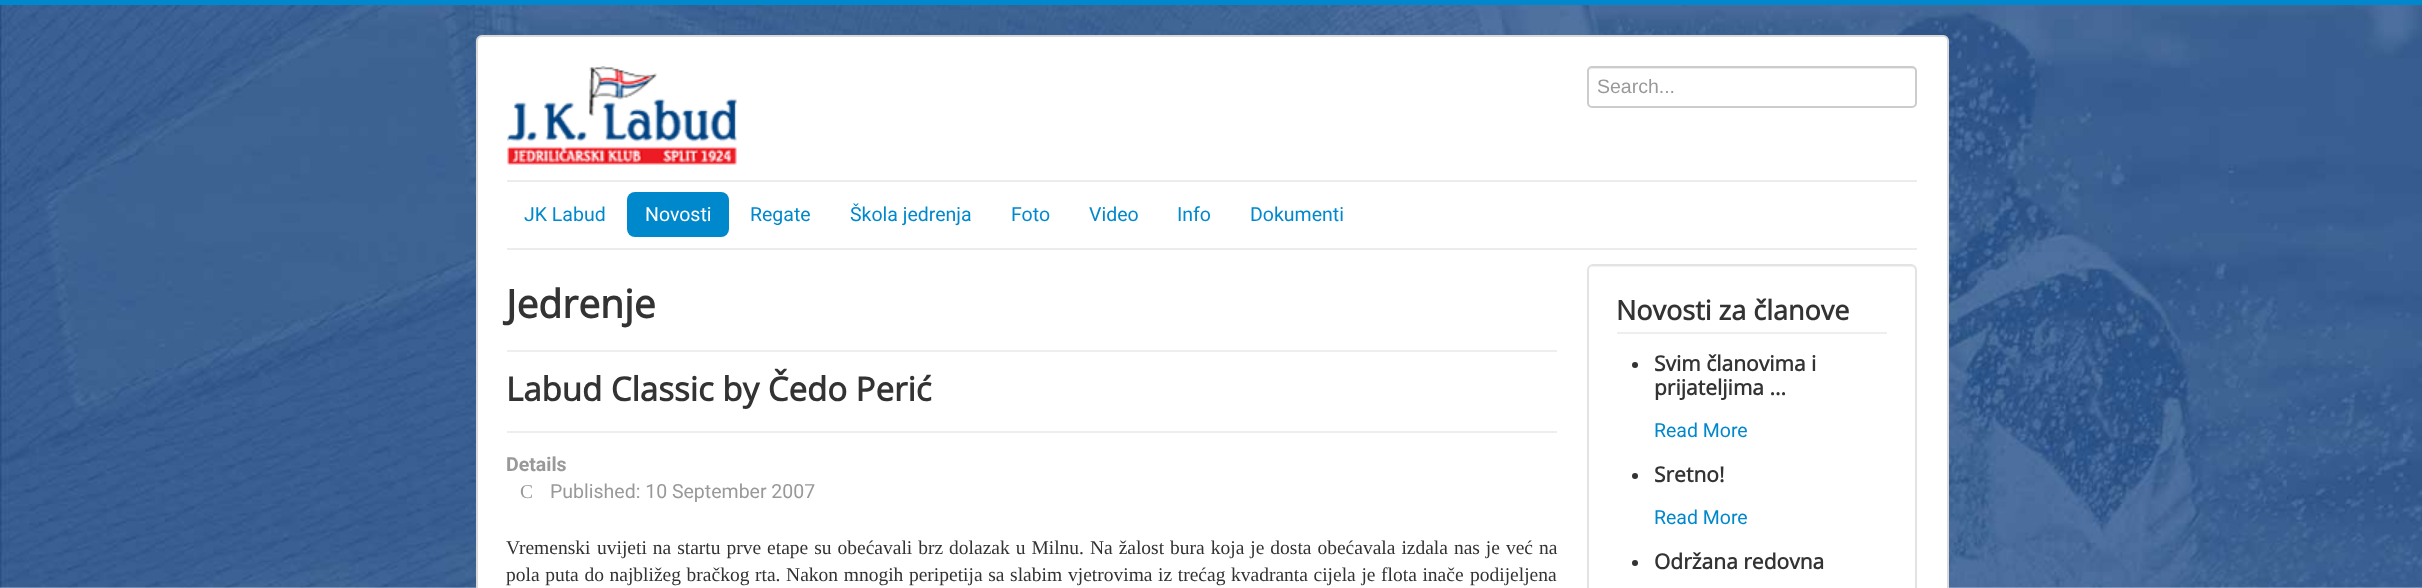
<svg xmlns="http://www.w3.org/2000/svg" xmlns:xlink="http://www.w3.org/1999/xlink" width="2422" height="588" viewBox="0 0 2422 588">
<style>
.cls-1{font:19.5px Liberation Sans;fill:#999999}
.cls-2{font:19.5px Roboto;fill:#0088cc}
.cls-3{font:19.5px Roboto;fill:#ffffff}
.cls-4{font:bold 39px Open Sans;fill:#333333}
.cls-5{font:bold 33px Open Sans;fill:#333333}
.cls-6{font:bold 19.5px Roboto;fill:#999999}
.cls-7{font:19.5px Liberation Serif;fill:#999999}
.cls-8{font:19.5px Roboto;fill:#999999}
.cls-9{font:19.5px Liberation Serif;fill:#333333}
.cls-10{font:bold 27px Open Sans;fill:#333333}
.cls-11{font:bold 21px Open Sans;fill:#333333}
</style>
<rect width="100%" height="100%" fill="#ffffff"/>
<image xlink:href="image0.png" x="0" y="5" width="2422" height="583"/>
<rect fill="#0088cc" x="0" y="0" width="2422" height="5"/>
<rect fill="#ffffff" x="476" y="35" width="1473" height="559" rx="6"/>
<rect fill="none" stroke="#000000" stroke-opacity="0.15" stroke-width="2" x="477" y="36" width="1471" height="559" rx="5"/>
<image xlink:href="image1.png" x="507" y="66" width="230" height="99"/>
<path fill="#ececec" d="M1592 69H1912C1914 69 1916 70 1916 72V71C1916 69 1915 68 1913 68H1592C1591 68 1590 69 1589 70Z"/>
<rect fill="none" stroke="#cccccc" stroke-width="2" x="1588" y="67" width="328" height="40" rx="4"/>
<rect fill="#ececec" x="507" y="180" width="1410" height="2"/>
<rect fill="#ececec" x="507" y="248" width="1410" height="2"/>
<rect fill="#0088cc" x="627" y="192" width="102" height="45" rx="8"/>
<rect fill="#eeeeee" x="507" y="350" width="1050" height="2"/>
<rect fill="#eeeeee" x="507" y="431" width="1050" height="2"/>
<path fill="#f2f2f2" d="M1593 267H1911C1913 267 1916 269 1916 272V271C1916 268 1914 266 1911 266H1594C1592 266 1591 267 1590 268Z"/>
<rect fill="none" stroke="#e3e3e3" stroke-width="2" x="1588" y="265" width="328" height="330" rx="5"/>
<rect fill="#eeeeee" x="1617" y="332" width="270" height="2"/>
<circle fill="#333333" cx="1635" cy="365" r="3"/>
<circle fill="#333333" cx="1635" cy="476" r="3"/>
<circle fill="#333333" cx="1635" cy="563" r="3"/>
<text class="cls-1" x="1597" y="93">Search...</text>
<text class="cls-2" x="524" y="221">JK Labud</text>
<text class="cls-3" x="645" y="221">Novosti</text>
<text class="cls-2" x="750" y="221">Regate</text>
<text class="cls-2" x="850" y="221">Škola jedrenja</text>
<text class="cls-2" x="1011" y="221">Foto</text>
<text class="cls-2" x="1089" y="221">Video</text>
<text class="cls-2" x="1177" y="221">Info</text>
<text class="cls-2" x="1250" y="221">Dokumenti</text>
<text class="cls-4" x="506" y="318">Jedrenje</text>
<text class="cls-5" x="506" y="401">Labud Classic by Čedo Perić</text>
<text class="cls-6" x="506" y="471">Details</text>
<text class="cls-7" x="520" y="498">C</text>
<text class="cls-8" x="550" y="498">Published: 10 September 2007</text>
<text class="cls-9" x="506" y="554">Vremenski</text>
<text class="cls-9" x="597" y="554" word-spacing="1.1">uvijeti na startu prve etape su obećavali brz dolazak u Milnu. Na žalost bura koja je dosta obećavala izdala nas je već na</text>
<text class="cls-9" x="506" y="581" word-spacing="0.75">pola puta do najbližeg bračkog rta. Nakon mnogih peripetija sa slabim</text>
<text class="cls-9" x="1068" y="581" word-spacing="0.75">vjetrovima iz trećag kvadranta cijela je flota inače</text>
<text class="cls-9" x="1470" y="581">podijeljena</text>
<text class="cls-10" x="1616" y="320">Novosti za članove</text>
<text class="cls-11"><tspan x="1654" y="371">Svim članovima i</tspan><tspan x="1654" y="395">prijateljima ...</tspan></text>
<text class="cls-2" x="1654" y="437">Read More</text>
<text class="cls-11" x="1654" y="482">Sretno!</text>
<text class="cls-2" x="1654" y="524">Read More</text>
<text class="cls-11" x="1654" y="569">Održana redovna</text>
</svg>
